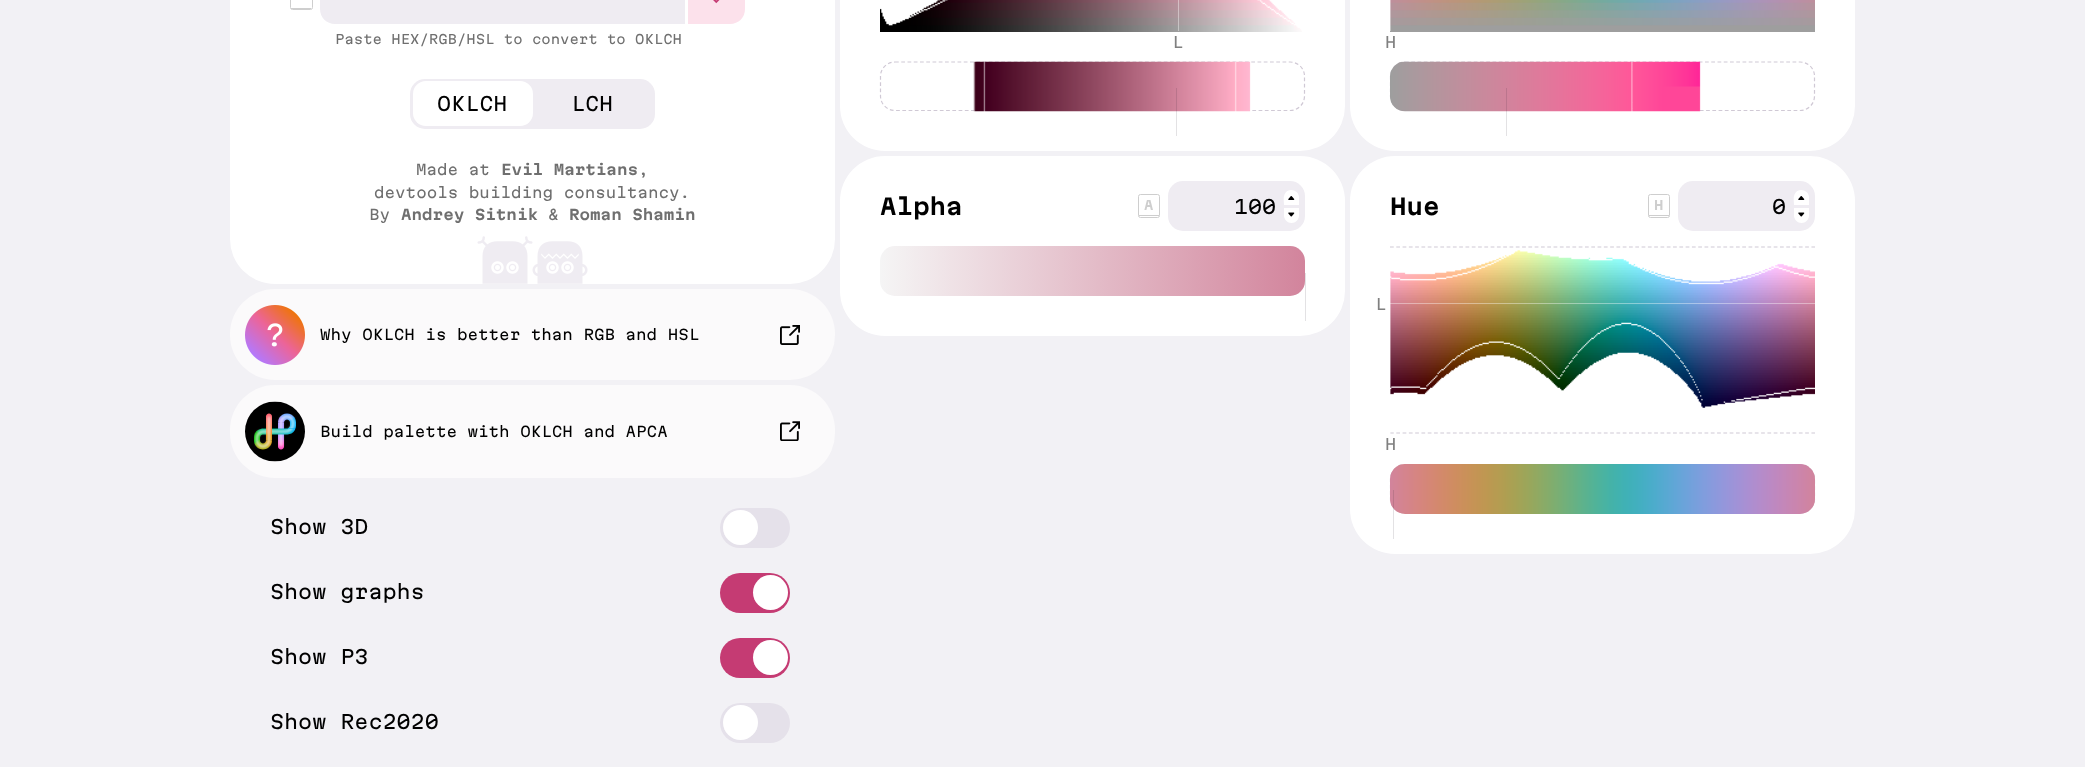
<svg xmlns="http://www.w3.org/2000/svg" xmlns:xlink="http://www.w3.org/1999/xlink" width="2085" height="767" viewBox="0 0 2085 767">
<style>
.cls-1{font:12.5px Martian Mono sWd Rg;fill:#6f6f6f}
.cls-2{font:18.75px Martian Mono sWd Rg;fill:#000000}
.cls-3{font:14.05px Martian Mono sWd Rg;fill:#6f6f6f}
.cls-4{font:bold 14.05px Martian Mono sWd Rg;fill:#6f6f6f}
.cls-5{font:15px Martian Mono sWd Rg;fill:#808080}
.cls-6{font:14.05px Martian Mono sWd Rg;fill:#000000}
.cls-7{font:bold 22px Martian Mono sWd Rg;fill:#000000}
.cls-8{font:bold 12.5px Martian Mono sWd Rg;fill:#cecece}
</style>
<defs>
<linearGradient id="g1" gradientUnits="userSpaceOnUse" x1="880" y1="271" x2="1305" y2="271"><stop offset="0" stop-color="#d2849c" stop-opacity="0"/><stop offset="1" stop-color="#d2849c"/></linearGradient>
</defs>
<rect width="100%" height="100%" fill="#f2f1f5"/>
<rect fill="#ffffff" x="230" y="-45" width="605" height="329" rx="45"/>
<rect fill="none" stroke="#cecece" x="290.5" y="-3.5" width="22" height="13" rx="2"/>
<rect fill="#cecece" x="291" y="8" width="20" height="1"/>
<path fill="#efecf2" d="M335-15H685V24H335C326.5 24 320 17.5 320 9V0C320-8.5 326.5-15 335-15Z"/>
<path fill="#fce1eb" d="M688-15H730C738.5-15 745-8.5 745 0V9C745 17.5 738.5 24 730 24H688Z"/>
<image xlink:href="image0.png" x="713" y="0" width="7" height="4"/>
<rect fill="#efecf2" x="410" y="79" width="245" height="50" rx="15"/>
<rect fill="#ffffff" x="413" y="81" width="120" height="45" rx="13"/>
<image xlink:href="image1.png" x="477" y="236" width="111" height="48"/>
<rect fill="#ffffff" x="840" y="-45" width="505" height="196" rx="45"/>
<image xlink:href="image2.png" x="880" y="0" width="422" height="32"/>
<rect fill="#ffffff" fill-opacity="0.4" x="1178" y="0" width="1" height="31"/>
<path fill="none" stroke="#d0c9d5" stroke-width="1.2" stroke-dasharray="3.75 2.5" d="M895 62H1290C1298 62 1304.5 68.5 1304.5 76V96C1304.5 104 1298 110.5 1290 110.5H895C887 110.5 880.5 104 880.5 96V76C880.5 68.5 887 62 895 62Z"/>
<image xlink:href="image3.png" x="973" y="61" width="278" height="51"/>
<rect fill="#1a1220" fill-opacity="0.12" filter="blur(0.5px)" x="1176" y="88" width="1" height="48"/>
<rect fill="#ffffff" x="1350" y="-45" width="505" height="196" rx="45"/>
<image xlink:href="image4.png" x="1390" y="0" width="425" height="32"/>
<rect fill="#ffffff" fill-opacity="0.4" x="1390" y="0" width="1" height="31"/>
<path fill="none" stroke="#d0c9d5" stroke-width="1.2" stroke-dasharray="3.75 2.5" d="M1405 62H1800C1808 62 1814.5 68.5 1814.5 76V96C1814.5 104 1808 110.5 1800 110.5H1405C1397 110.5 1390.5 104 1390.5 96V76C1390.5 68.5 1397 62 1405 62Z"/>
<image xlink:href="image5.png" x="1390" y="61" width="311" height="51"/>
<rect fill="#1a1220" fill-opacity="0.12" filter="blur(0.5px)" x="1506" y="88" width="1" height="48"/>
<rect fill="#fbfafb" x="230" y="289" width="605" height="91" rx="45"/>
<image xlink:href="image6.png" x="245" y="305" width="60" height="60"/>
<image xlink:href="image7.png" x="780" y="325" width="20" height="20"/>
<rect fill="#fbfafb" x="230" y="385" width="605" height="93" rx="45"/>
<image xlink:href="image8.png" x="245" y="401" width="60" height="61"/>
<image xlink:href="image9.png" x="780" y="421" width="20" height="20"/>
<rect fill="#ffffff" x="840" y="156" width="505" height="180" rx="45"/>
<rect fill="none" stroke="#cecece" x="1138.5" y="194.5" width="21" height="23" rx="2"/>
<rect fill="#cecece" x="1139" y="215" width="20" height="1"/>
<rect fill="#efecf2" x="1168" y="181" width="137" height="50" rx="15"/>
<path fill="#ffffff" d="M1299 205H1284C1284 202 1283 197.5 1284.5 194.5C1287.5 187 1299 189.5 1299 197.5Z"/>
<image xlink:href="image10.png" x="1288" y="196" width="7" height="4"/>
<path fill="#ffffff" d="M1284 208H1299V215.5C1299 219.5 1295.5 223 1291.5 223C1287.5 223 1284 219.5 1284 215.5Z"/>
<image xlink:href="image11.png" x="1288" y="212" width="7" height="5"/>
<rect fill="#f5f5f5" x="880" y="246" width="425" height="50" rx="15"/>
<rect fill="url(#g1)" x="880" y="246" width="425" height="50" rx="15"/>
<rect fill="#1a1220" fill-opacity="0.12" filter="blur(0.5px)" x="1305" y="273" width="1" height="48"/>
<rect fill="#ffffff" x="1350" y="156" width="505" height="398" rx="45"/>
<rect fill="none" stroke="#cecece" x="1648.5" y="194.5" width="21" height="23" rx="2"/>
<rect fill="#cecece" x="1649" y="215" width="20" height="1"/>
<rect fill="#efecf2" x="1678" y="181" width="137" height="50" rx="15"/>
<path fill="#ffffff" d="M1809 205H1794C1794 202 1793 197.5 1794.5 194.5C1797.5 187 1809 189.5 1809 197.5Z"/>
<image xlink:href="image10.png" x="1798" y="196" width="7" height="4"/>
<path fill="#ffffff" d="M1794 208H1809V215.5C1809 219.5 1805.5 223 1801.5 223C1797.5 223 1794 219.5 1794 215.5Z"/>
<image xlink:href="image11.png" x="1798" y="212" width="7" height="5"/>
<path fill="none" stroke="#d0c9d5" stroke-width="1.2" stroke-dasharray="3.75 2.54" d="M1390 247H1815"/>
<path fill="none" stroke="#d0c9d5" stroke-width="1.2" stroke-dasharray="3.75 2.54" d="M1390 433H1815"/>
<image xlink:href="image12.png" x="1390" y="250" width="425" height="158"/>
<rect fill="#ffffff" fill-opacity="0.4" x="1390" y="303" width="425" height="1"/>
<rect fill="#ffffff" fill-opacity="0.4" x="1390" y="271" width="1" height="163"/>
<path fill="none" stroke="#d0c9d5" stroke-width="1.2" stroke-dasharray="3.75 2.5" d="M1405 464.5H1800C1808 464.5 1814.5 471 1814.5 479V499C1814.5 506.5 1808 513 1800 513H1405C1397 513 1390.5 506.5 1390.5 499V479C1390.5 471 1397 464.5 1405 464.5Z"/>
<image xlink:href="image13.png" x="1390" y="464" width="425" height="50"/>
<rect fill="#1a1220" fill-opacity="0.12" filter="blur(0.5px)" x="1393" y="490" width="1" height="49"/>
<rect fill="#e5e1ea" x="720" y="508" width="70" height="40" rx="20"/>
<circle fill="#ffffff" cx="740.5" cy="527.5" r="17.5"/>
<rect fill="#c53b73" x="720" y="573" width="70" height="40" rx="20"/>
<circle fill="#ffffff" cx="770.5" cy="592.5" r="17.5"/>
<rect fill="#c53b73" x="720" y="638" width="70" height="40" rx="20"/>
<circle fill="#ffffff" cx="770.5" cy="657.5" r="17.5"/>
<rect fill="#e5e1ea" x="720" y="703" width="70" height="40" rx="20"/>
<circle fill="#ffffff" cx="740.5" cy="722.5" r="17.5"/>
<text class="cls-1" x="335" y="44">Paste HEX/RGB/HSL to convert to OKLCH</text>
<text class="cls-2" x="437" y="111">OKLCH</text>
<text class="cls-2" x="571" y="111">LCH</text>
<text class="cls-3" x="416" y="175">Made at</text>
<text class="cls-4" x="501" y="175">Evil Martians</text>
<text class="cls-3" x="638" y="175">,</text>
<text class="cls-3" x="374" y="198">devtools building consultancy.</text>
<text class="cls-3" x="369" y="220">By</text>
<text class="cls-4" x="401" y="220">Andrey Sitnik</text>
<text class="cls-3" x="548" y="220">&amp;</text>
<text class="cls-4" x="569" y="220">Roman Shamin</text>
<text class="cls-5" x="1172" y="48">L</text>
<text class="cls-5" x="1385" y="48">H</text>
<text class="cls-6" x="320" y="340">Why OKLCH is better than RGB and HSL</text>
<text class="cls-6" x="320" y="437">Build palette with OKLCH and APCA</text>
<text class="cls-7" x="880" y="215">Alpha</text>
<text class="cls-8" x="1144" y="210">A</text>
<text class="cls-2" x="1234" y="214">100</text>
<text class="cls-7" x="1390" y="215">Hue</text>
<text class="cls-8" x="1654" y="210">H</text>
<text class="cls-2" x="1772" y="214">0</text>
<text class="cls-5" x="1375" y="310">L</text>
<text class="cls-5" x="1385" y="450">H</text>
<text class="cls-2" x="270" y="534">Show 3D</text>
<text class="cls-2" x="270" y="599">Show graphs</text>
<text class="cls-2" x="270" y="664">Show P3</text>
<text class="cls-2" x="270" y="729">Show Rec2020</text>
</svg>
